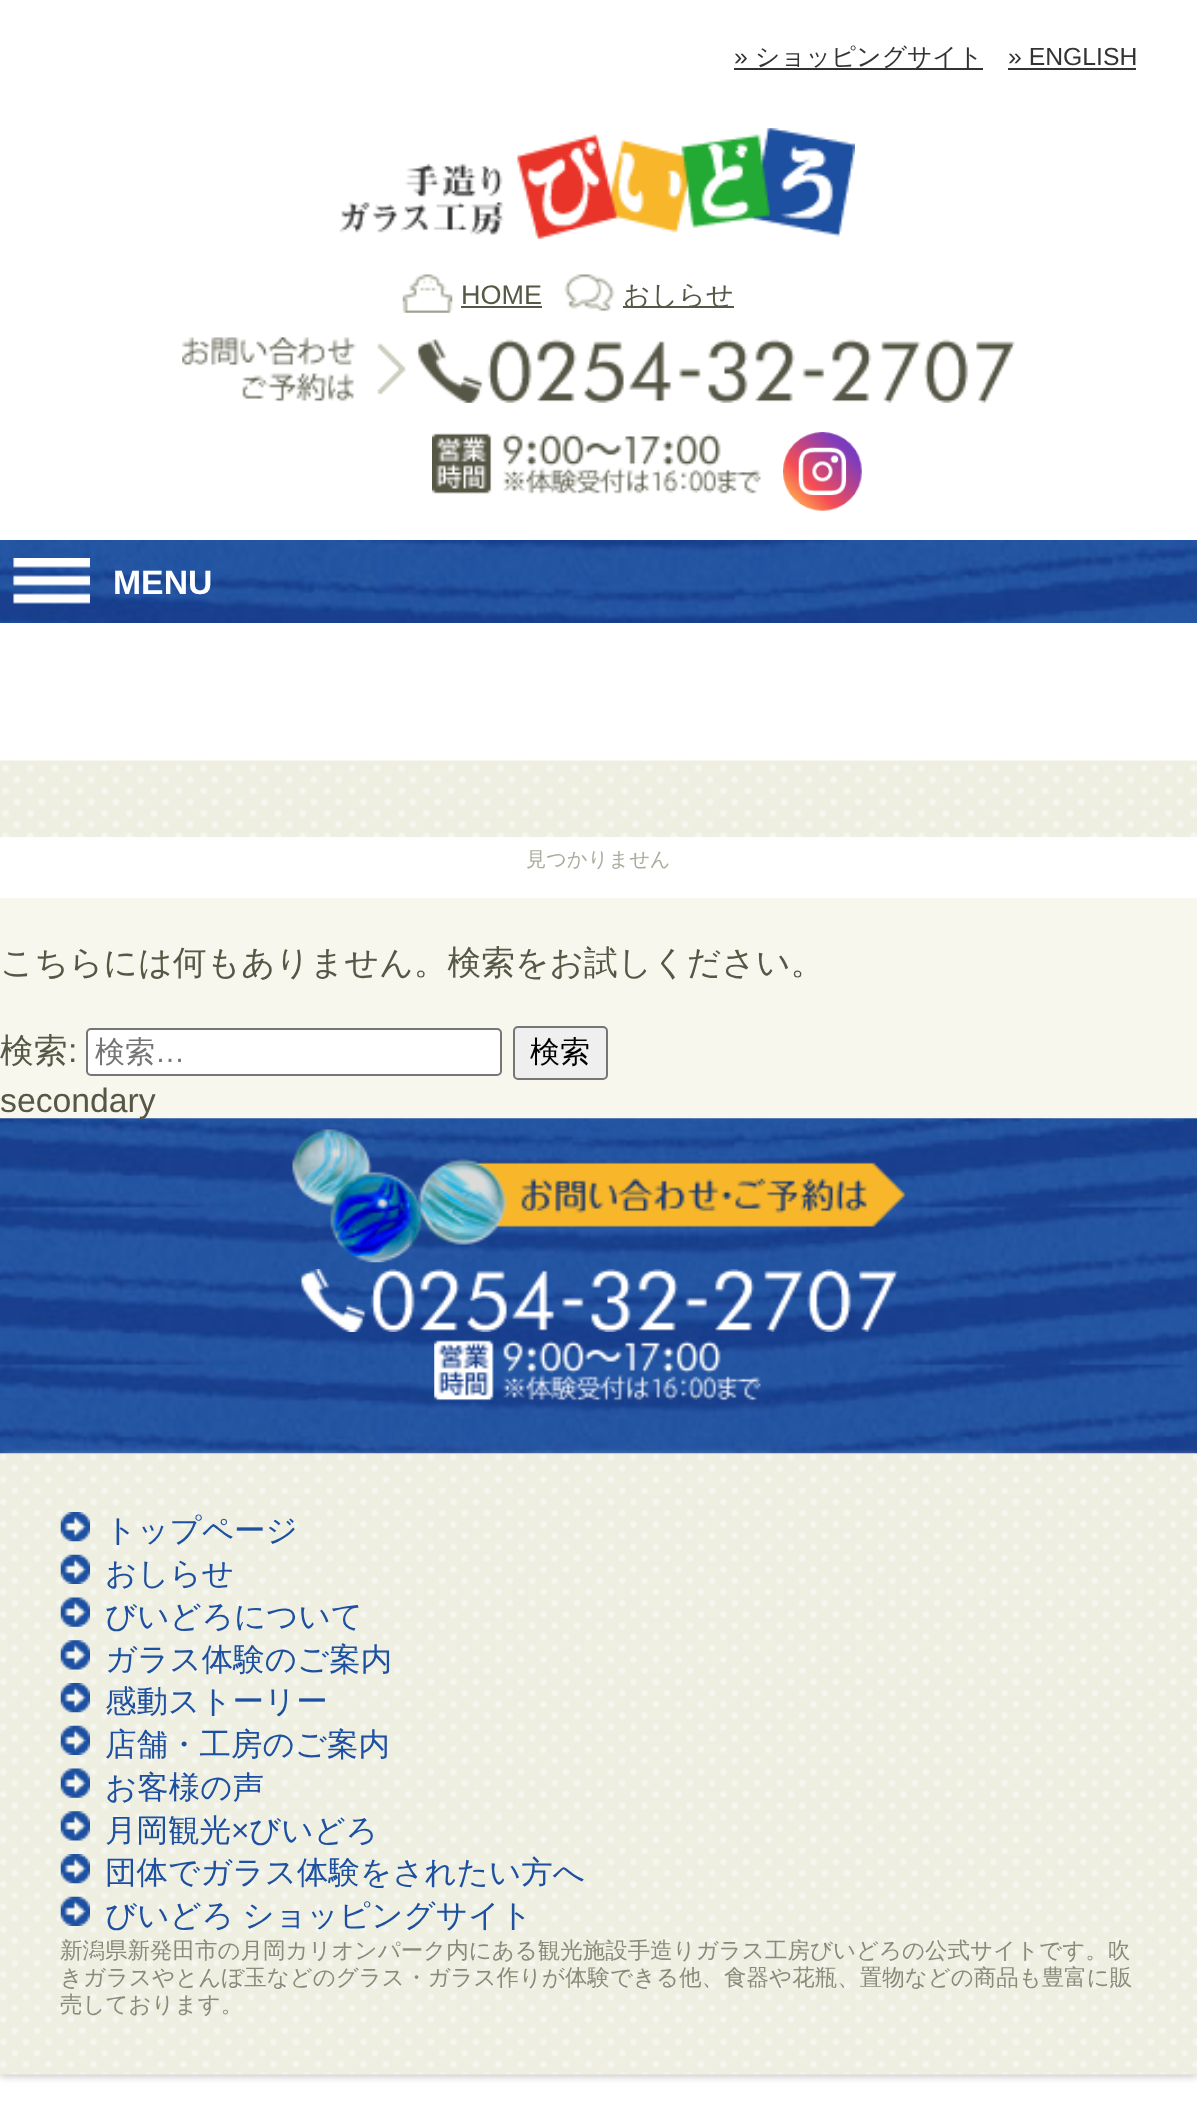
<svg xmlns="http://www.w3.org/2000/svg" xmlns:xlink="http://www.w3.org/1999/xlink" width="1197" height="2119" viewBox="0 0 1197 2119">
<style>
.cls-1{font:24.75px Liberation Sans;fill:#333333}
.cls-2{font:500 24.75px WenQuanYi Zen Hei;fill:#333333}
.cls-3{font:27px Liberation Sans;fill:#575746}
.cls-4{font:500 27px WenQuanYi Zen Hei;fill:#575746}
.cls-5{font:bold 33.75px Liberation Sans;fill:#ffffff}
.cls-6{font:500 20.25px WenQuanYi Zen Hei;fill:#acac9d}
.cls-7{font:500 33.75px WenQuanYi Zen Hei;fill:#575746}
.cls-8{font:33.75px Liberation Sans;fill:#575746}
.cls-9{font:500 30px WenQuanYi Zen Hei;fill:#757575}
.cls-10{font:30px Liberation Sans;fill:#757575}
.cls-11{font:500 30px WenQuanYi Zen Hei;fill:#000000}
.cls-12{font:500 31.5px WenQuanYi Zen Hei;fill:#1d50a1}
.cls-13{font:31.5px Liberation Sans;fill:#1d50a1}
.cls-14{font:500 22.5px WenQuanYi Zen Hei;fill:#8a8a7a}
</style>
<rect width="100%" height="100%" fill="#f7f7ee"/>
<rect fill="#ffffff" x="0" y="0" width="1197" height="540"/>
<rect fill="#333333" x="734" y="68" width="249" height="2"/>
<rect fill="#333333" x="1008" y="68" width="128" height="2"/>
<image xlink:href="image0.png" x="339" y="128" width="516" height="111"/>
<image xlink:href="image1.png" x="402" y="274" width="51" height="39"/>
<rect fill="#575746" x="461" y="306" width="81" height="2"/>
<image xlink:href="image2.png" x="564" y="274" width="51" height="38"/>
<rect fill="#575746" x="623" y="306" width="111" height="2"/>
<image xlink:href="image3.png" x="182" y="337" width="833" height="66"/>
<image xlink:href="image4.png" x="432" y="433" width="329" height="61"/>
<image xlink:href="image5.png" x="783" y="432" width="79" height="79"/>
<image xlink:href="image6.png" x="0" y="540" width="1197" height="83"/>
<rect fill="#ffffff" x="0" y="623" width="1197" height="137"/>
<image xlink:href="image7.png" x="0" y="760" width="1197" height="77"/>
<rect fill="#ffffff" x="0" y="837" width="1197" height="61"/>
<rect fill="#ffffff" stroke="#767676" stroke-width="2" x="87" y="1029" width="414" height="46" rx="4"/>
<rect fill="#efefef" stroke="#767676" stroke-width="2" x="514" y="1027" width="93" height="52" rx="4"/>
<image xlink:href="image8.png" x="0" y="1118" width="1197" height="336"/>
<image xlink:href="image9.png" x="292" y="1129" width="613" height="134"/>
<image xlink:href="image10.png" x="299" y="1269" width="599" height="63"/>
<image xlink:href="image11.png" x="434" y="1340" width="327" height="61"/>
<rect fill="#cccccc" filter="blur(3.5px)" x="0" y="2077" width="1197" height="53"/>
<rect fill="#ffffff" x="0" y="2075" width="1197" height="44"/>
<rect fill="#cccccc" filter="blur(3.5px)" x="0" y="1456" width="1197" height="621"/>
<image xlink:href="image12.png" x="0" y="1453" width="1197" height="622"/>
<image xlink:href="image13.png" x="60" y="1512" width="30" height="30"/>
<image xlink:href="image14.png" x="60" y="1554" width="30" height="30"/>
<image xlink:href="image15.png" x="60" y="1597" width="30" height="30"/>
<image xlink:href="image16.png" x="60" y="1640" width="30" height="30"/>
<image xlink:href="image17.png" x="60" y="1683" width="30" height="30"/>
<image xlink:href="image18.png" x="60" y="1725" width="30" height="30"/>
<image xlink:href="image19.png" x="60" y="1768" width="30" height="30"/>
<image xlink:href="image20.png" x="60" y="1811" width="30" height="30"/>
<image xlink:href="image21.png" x="60" y="1854" width="30" height="30"/>
<image xlink:href="image22.png" x="60" y="1896" width="30" height="30"/>
<text class="cls-1" x="734" y="65">»</text>
<text class="cls-2" x="755" y="65">ショッピングサイト</text>
<text class="cls-1" x="1008" y="65">» ENGLISH</text>
<text class="cls-3" x="461" y="304">HOME</text>
<text class="cls-4" x="623" y="304">おしらせ</text>
<text class="cls-5" x="113" y="594">MENU</text>
<text class="cls-6" x="526" y="866">見つかりません</text>
<text class="cls-7" x="0" y="974">こちらには何もありません。検索をお試しください。</text>
<text class="cls-7" x="0" y="1062">検索</text>
<text class="cls-8" x="68" y="1062">:</text>
<text class="cls-9" x="95" y="1062">検索</text>
<text class="cls-10" x="155" y="1062">…</text>
<text class="cls-11" x="530" y="1062">検索</text>
<text class="cls-8" x="0" y="1112">secondary</text>
<text class="cls-12"><tspan x="105" y="1541">トップページ</tspan><tspan x="105" y="1584">おしらせ</tspan><tspan x="105" y="1627">びいどろについて</tspan><tspan x="105" y="1670">ガラス体験のご案内</tspan><tspan x="105" y="1712">感動ストーリー</tspan><tspan x="105" y="1755">店舗・工房のご案内</tspan><tspan x="105" y="1798">お客様の声</tspan><tspan x="105" y="1841">月岡観光</tspan></text>
<text class="cls-13" x="231" y="1841">×</text>
<text class="cls-12" x="249" y="1841">びいどろ</text>
<text class="cls-12"><tspan x="105" y="1883">団体でガラス体験をされたい方へ</tspan><tspan x="105" y="1926" word-spacing="-1">びいどろ ショッピングサイト</tspan></text>
<text class="cls-14"><tspan x="60" y="1958">新潟県新発田市の月岡カリオンパーク内にある観光施設手造りガラス工房びいどろの公式サイトです。吹</tspan><tspan x="60" y="1985">きガラスやとんぼ玉などのグラス・ガラス作りが体験できる他、食器や花瓶、置物などの商品も豊富に販</tspan><tspan x="60" y="2012">売しております。</tspan></text>
</svg>
